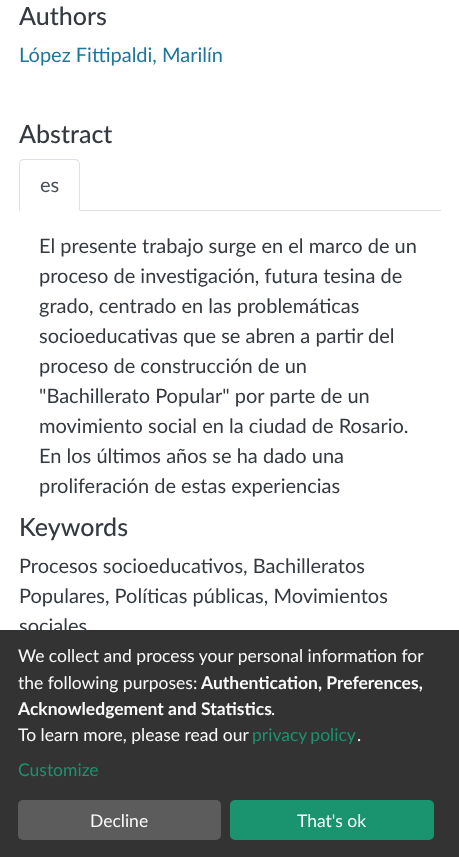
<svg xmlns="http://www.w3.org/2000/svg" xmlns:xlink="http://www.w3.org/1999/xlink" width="459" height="857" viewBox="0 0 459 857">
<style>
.cls-1{font:500 25px Lato;fill:#343a40}
.cls-2{font:20px Lato;fill:#207698}
.cls-3{font:20px Lato;fill:#495057}
.cls-4{font:20px Lato;fill:#343a40}
.cls-5{font:17.5px Lato;fill:#fafafa}
.cls-6{font:bold 17.5px Lato;fill:#fafafa}
.cls-7{font:17.5px Lato;fill:#1a936f}
</style>
<rect width="100%" height="100%" fill="#ffffff"/>
<rect fill="#dee2e6" x="80" y="210" width="361" height="1"/>
<path fill="#dee2e6" d="M24 159C22 159 21 160 20 160L21 161L24 160H75L78 161V160C78 159 76 159 75 159ZM78 160C79 161 80 162 80 164V211L79 210V163L78 161Z"/>
<path fill="#ffffff" d="M80 211H19L20 210H79Z"/>
<path fill="#dee2e6" d="M20 160C20 161 19 162 19 164V211L20 210V164C20 163 20 162 21 161Z"/>
<text class="cls-1" x="19" y="25">Authors</text>
<text class="cls-2" x="19" y="62">López Fittipaldi, Marilín</text>
<text class="cls-1" x="19" y="143">Abstract</text>
<text class="cls-3" x="40" y="192">es</text>
<text class="cls-4"><tspan x="39" y="253">El presente trabajo surge en el marco de un</tspan><tspan x="39" y="283">proceso de investigación, futura tesina de</tspan><tspan x="39" y="313">grado, centrado en las problemáticas</tspan><tspan x="39" y="343">socioeducativas que se abren a partir del</tspan><tspan x="39" y="373">proceso de construcción de un</tspan><tspan x="39" y="403">"Bachillerato Popular" por parte de un</tspan><tspan x="39" y="433">movimiento social en la ciudad de Rosario.</tspan><tspan x="39" y="463">En los últimos años se ha dado una</tspan><tspan x="39" y="493">proliferación de estas experiencias</tspan></text>
<text class="cls-1" x="19" y="536">Keywords</text>
<text class="cls-4"><tspan x="19" y="573">Procesos socioeducativos, Bachilleratos</tspan><tspan x="19" y="603">Populares, Políticas públicas, Movimientos</tspan><tspan x="19" y="633">sociales</tspan></text>
<rect fill="#333333" x="0" y="630" width="459" height="227"/>
<text class="cls-5"><tspan x="18" y="662">We collect and process your personal information for</tspan><tspan x="18" y="689">the following purposes:</tspan></text>
<text class="cls-6" x="201" y="689">Authentication, Preferences,</text>
<text class="cls-6" x="18" y="715">Acknowledgement and Statistics</text>
<text class="cls-5" x="271" y="715">.</text>
<text class="cls-5" x="18" y="741">To learn more, please read our</text>
<text class="cls-7" x="252" y="741" word-spacing="-1">privacy policy</text>
<text class="cls-5" x="357" y="741">.</text>
<text class="cls-7" x="18" y="776">Customize</text>
<rect fill="#5c5c5c" x="18" y="800" width="203" height="40" rx="5"/>
<text class="cls-5" x="90" y="827">Decline</text>
<rect fill="#1a936f" x="230" y="800" width="204" height="40" rx="5"/>
<text class="cls-5" x="297" y="827">That's ok</text>
</svg>
